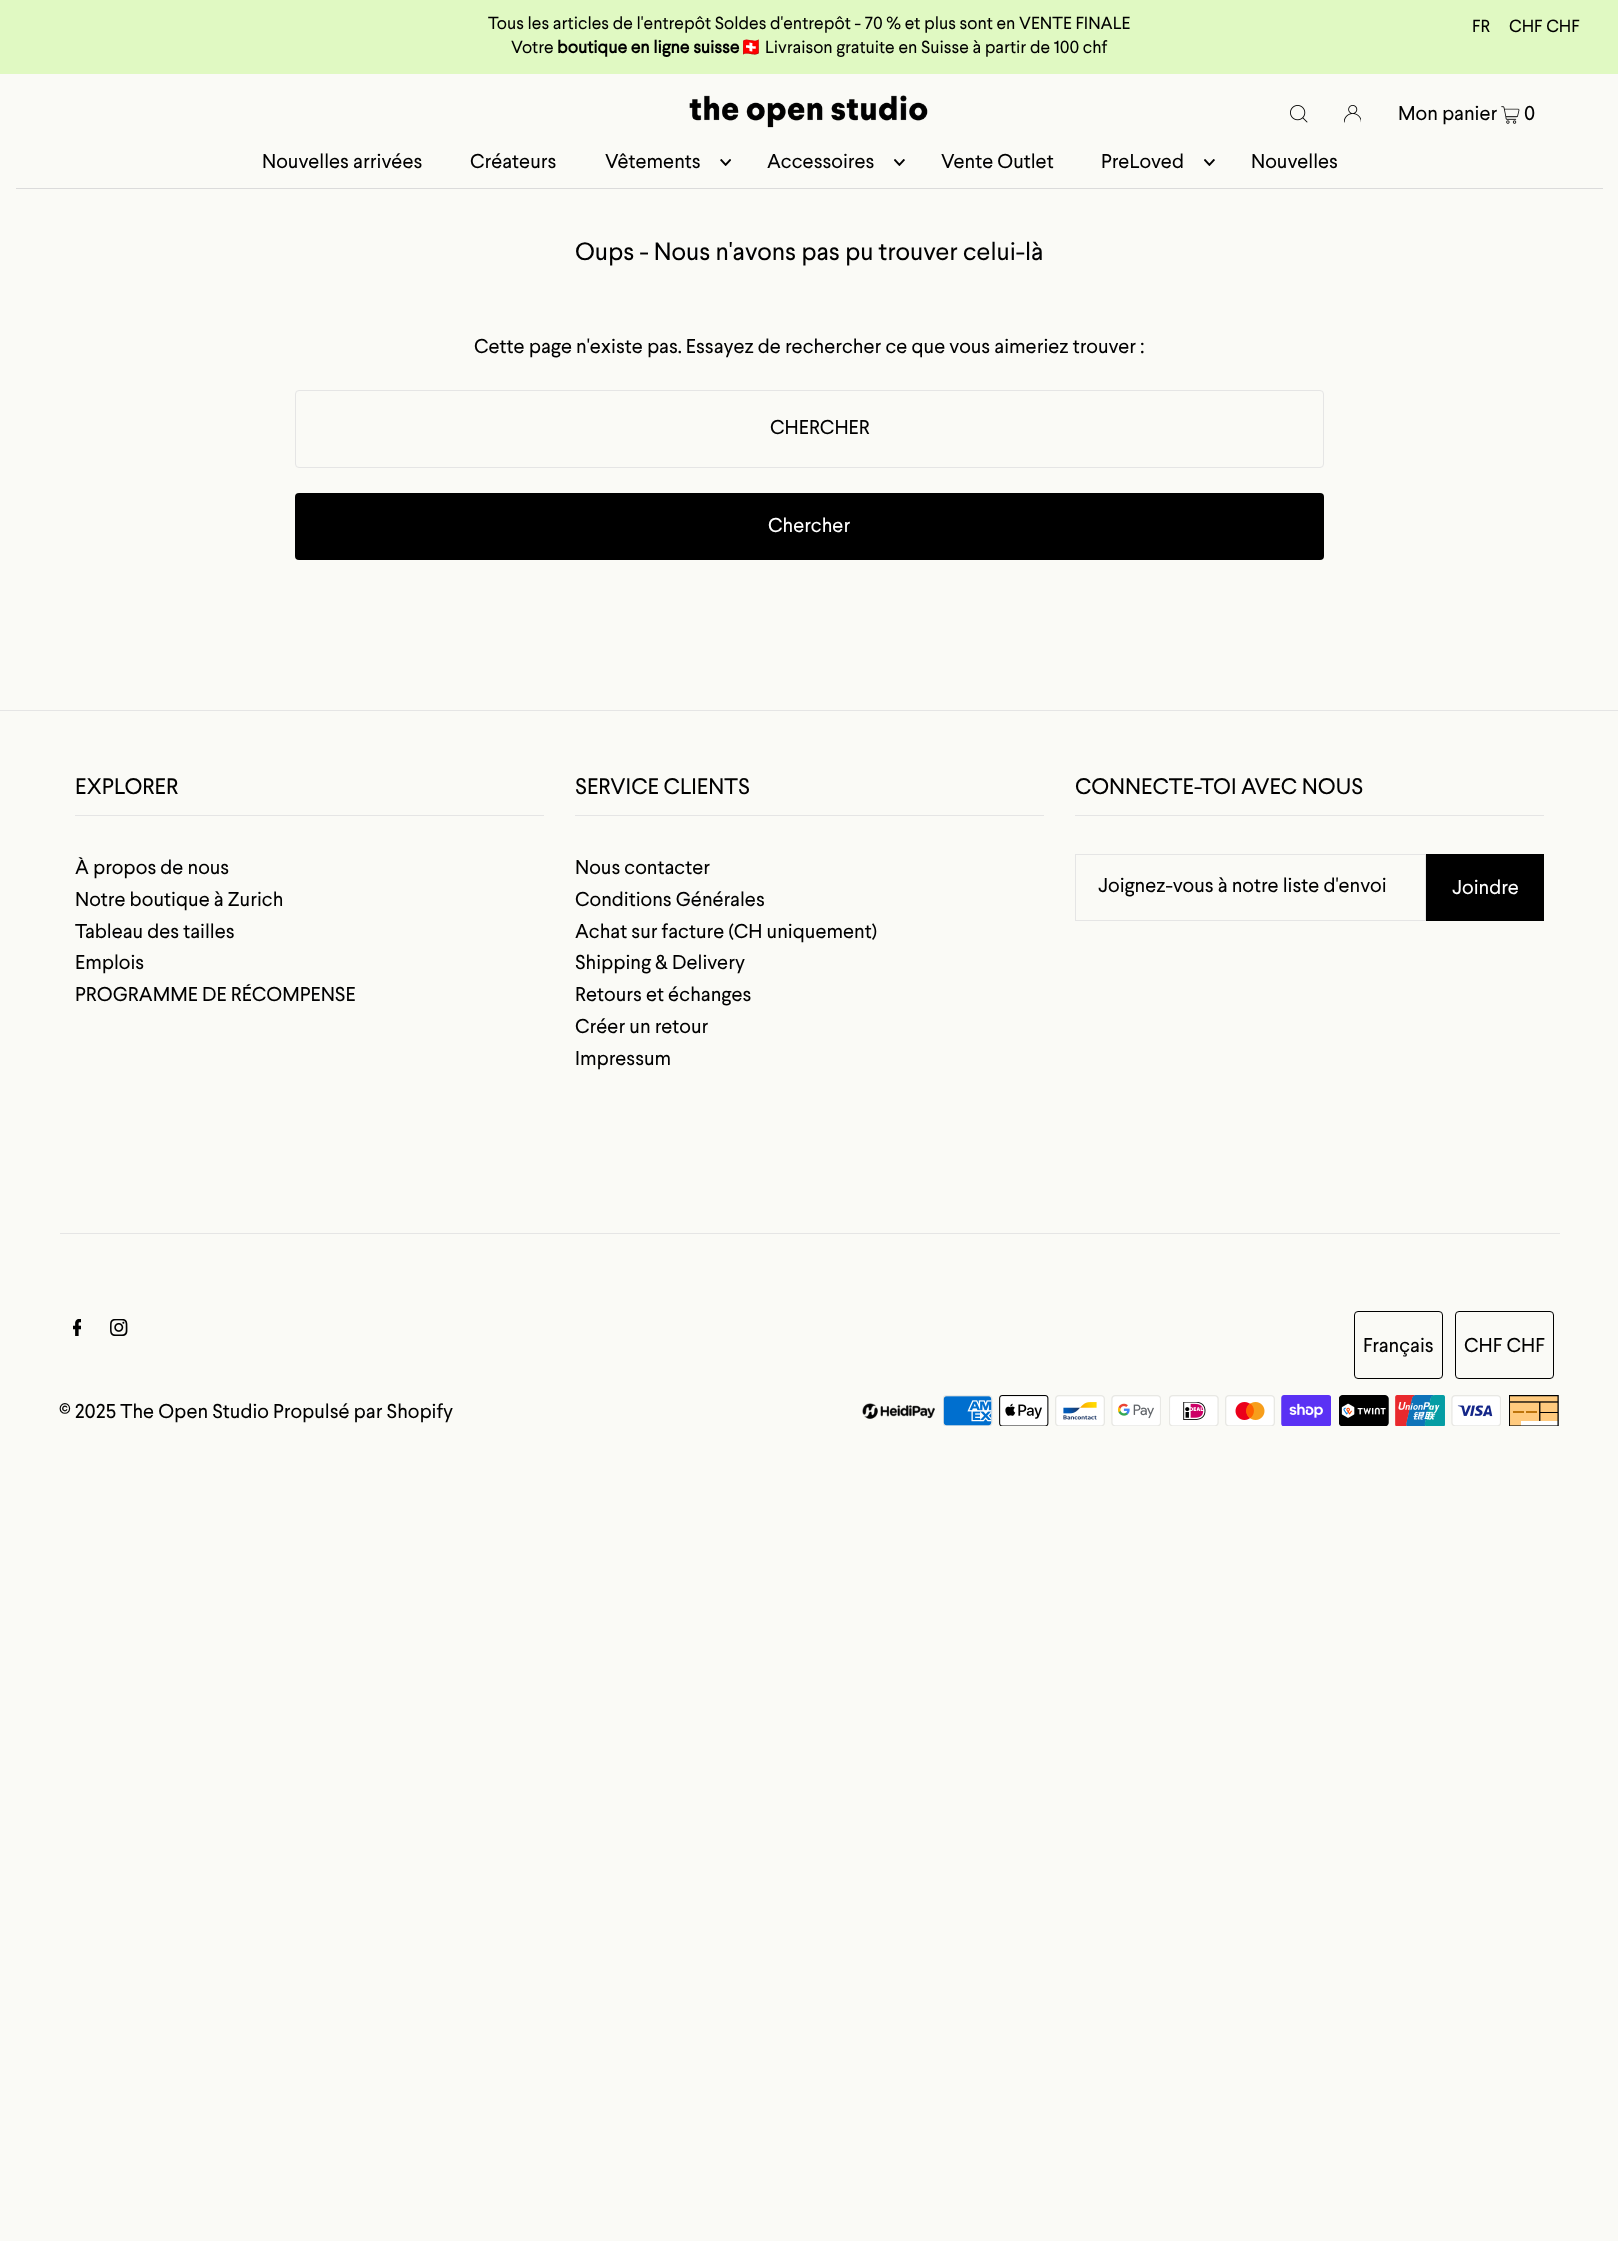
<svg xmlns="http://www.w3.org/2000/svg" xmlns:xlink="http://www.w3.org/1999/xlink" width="1618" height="2241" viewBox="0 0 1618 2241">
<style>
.cls-1{font:17.5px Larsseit;fill:#000000}
.cls-2{font:bold 17.5px Larsseit;fill:#000000}
.cls-3{font:bold 17.5px Noto Color Emoji;fill:#000000}
.cls-4{font:20px Larsseit;fill:#000000}
.cls-5{font:25px Larsseit;fill:#000000}
.cls-6{font:20px Larsseit;fill:#ffffff}
.cls-7{font:22.5px Larsseit;fill:#000000}
</style>
<rect width="100%" height="100%" fill="#fafaf6"/>
<rect fill="#e0f9c2" x="0" y="0" width="1618" height="74"/>
<rect fill="#dbdbdb" x="16" y="188" width="1587" height="1"/>
<image xlink:href="image0.png" x="689" y="95" width="239" height="33"/>
<image xlink:href="image1.png" x="1290" y="105" width="18" height="18"/>
<image xlink:href="image2.png" x="1344" y="105" width="17" height="18"/>
<image xlink:href="image3.png" x="1501" y="106" width="19" height="18"/>
<image xlink:href="image4.png" x="720" y="159" width="11" height="7"/>
<image xlink:href="image5.png" x="894" y="159" width="11" height="7"/>
<image xlink:href="image5.png" x="1204" y="159" width="11" height="7"/>
<rect fill="none" stroke="#e5e5e5" x="295.5" y="390.5" width="1028" height="77" rx="3.5"/>
<rect fill="#000000" x="295" y="493" width="1029" height="67" rx="4"/>
<rect fill="#e5e5e5" x="0" y="710" width="1618" height="1"/>
<rect fill="#e5e5e5" x="75" y="815" width="469" height="1"/>
<rect fill="#e5e5e5" x="575" y="815" width="469" height="1"/>
<rect fill="#e5e5e5" x="1075" y="815" width="469" height="1"/>
<rect fill="none" stroke="#e5e5e5" x="1075.5" y="854.5" width="350" height="66"/>
<rect fill="#000000" x="1426" y="854" width="118" height="67"/>
<rect fill="#e5e5e5" x="60" y="1233" width="1500" height="1"/>
<rect fill="none" stroke="#000000" x="1354.5" y="1311.5" width="88" height="67" rx="3.5"/>
<rect fill="none" stroke="#000000" x="1455.5" y="1311.5" width="98" height="67" rx="3.5"/>
<image xlink:href="image6.png" x="862" y="1403" width="73" height="16"/>
<image xlink:href="image7.png" x="943" y="1395" width="50" height="31"/>
<image xlink:href="image8.png" x="999" y="1395" width="50" height="31"/>
<image xlink:href="image9.png" x="1055" y="1395" width="50" height="31"/>
<image xlink:href="image10.png" x="1111" y="1395" width="50" height="31"/>
<image xlink:href="image11.png" x="1169" y="1395" width="50" height="31"/>
<image xlink:href="image12.png" x="1225" y="1395" width="50" height="31"/>
<image xlink:href="image13.png" x="1281" y="1395" width="50" height="31"/>
<image xlink:href="image14.png" x="1339" y="1395" width="50" height="31"/>
<image xlink:href="image15.png" x="1395" y="1395" width="50" height="31"/>
<image xlink:href="image16.png" x="1451" y="1395" width="50" height="31"/>
<image xlink:href="image17.png" x="1509" y="1395" width="50" height="31"/>
<image xlink:href="image18.png" x="73" y="1319" width="8" height="17"/>
<image xlink:href="image19.png" x="110" y="1319" width="18" height="17"/>
<text class="cls-1" x="488" y="29">Tous les articles de l'entrepôt Soldes d'entrepôt - 70 % et plus sont en VENTE FINALE</text>
<text class="cls-1" x="511" y="53">Votre</text>
<text class="cls-2" x="557" y="53">boutique en ligne suisse</text>
<text class="cls-3" x="740" y="53">🇨🇭</text>
<text class="cls-1" x="765" y="53">Livraison gratuite en Suisse à partir de 100 chf</text>
<text class="cls-1" x="1472" y="32">FR</text>
<text class="cls-1" x="1509" y="32">CHF CHF</text>
<text class="cls-4" x="1398" y="120">Mon panier</text>
<text class="cls-4" x="1524" y="120">0</text>
<text class="cls-4" x="262" y="168">Nouvelles arrivées</text>
<text class="cls-4" x="470" y="168">Créateurs</text>
<text class="cls-4" x="605" y="168">Vêtements</text>
<text class="cls-4" x="767" y="168">Accessoires</text>
<text class="cls-4" x="941" y="168">Vente Outlet</text>
<text class="cls-4" x="1101" y="168">PreLoved</text>
<text class="cls-4" x="1251" y="168">Nouvelles</text>
<text class="cls-5" x="575" y="260">Oups - Nous n'avons pas pu trouver celui-là</text>
<text class="cls-4" x="474" y="353">Cette page n'existe pas. Essayez de rechercher ce que vous aimeriez trouver :</text>
<text class="cls-4" x="770" y="434">CHERCHER</text>
<text class="cls-6" x="768" y="532">Chercher</text>
<text class="cls-7" x="75" y="794">EXPLORER</text>
<text class="cls-4"><tspan x="75" y="874">À propos de nous</tspan><tspan x="75" y="906">Notre boutique à Zurich</tspan><tspan x="75" y="938">Tableau des tailles</tspan><tspan x="75" y="969">Emplois</tspan><tspan x="75" y="1001">PROGRAMME DE RÉCOMPENSE</tspan></text>
<text class="cls-7" x="575" y="794">SERVICE CLIENTS</text>
<text class="cls-4"><tspan x="575" y="874">Nous contacter</tspan><tspan x="575" y="906">Conditions Générales</tspan><tspan x="575" y="938">Achat sur facture (CH uniquement)</tspan><tspan x="575" y="969">Shipping &amp; Delivery</tspan><tspan x="575" y="1001">Retours et échanges</tspan><tspan x="575" y="1033">Créer un retour</tspan><tspan x="575" y="1065">Impressum</tspan></text>
<text class="cls-7" x="1075" y="794">CONNECTE-TOI AVEC NOUS</text>
<text class="cls-4" x="1098" y="892">Joignez-vous à notre liste d'envoi</text>
<text class="cls-6" x="1452" y="894">Joindre</text>
<text class="cls-4" x="1363" y="1352">Français</text>
<text class="cls-4" x="1464" y="1352">CHF CHF</text>
<text class="cls-4" x="59" y="1418">© 2025 The Open Studio Propulsé par Shopify</text>
</svg>
